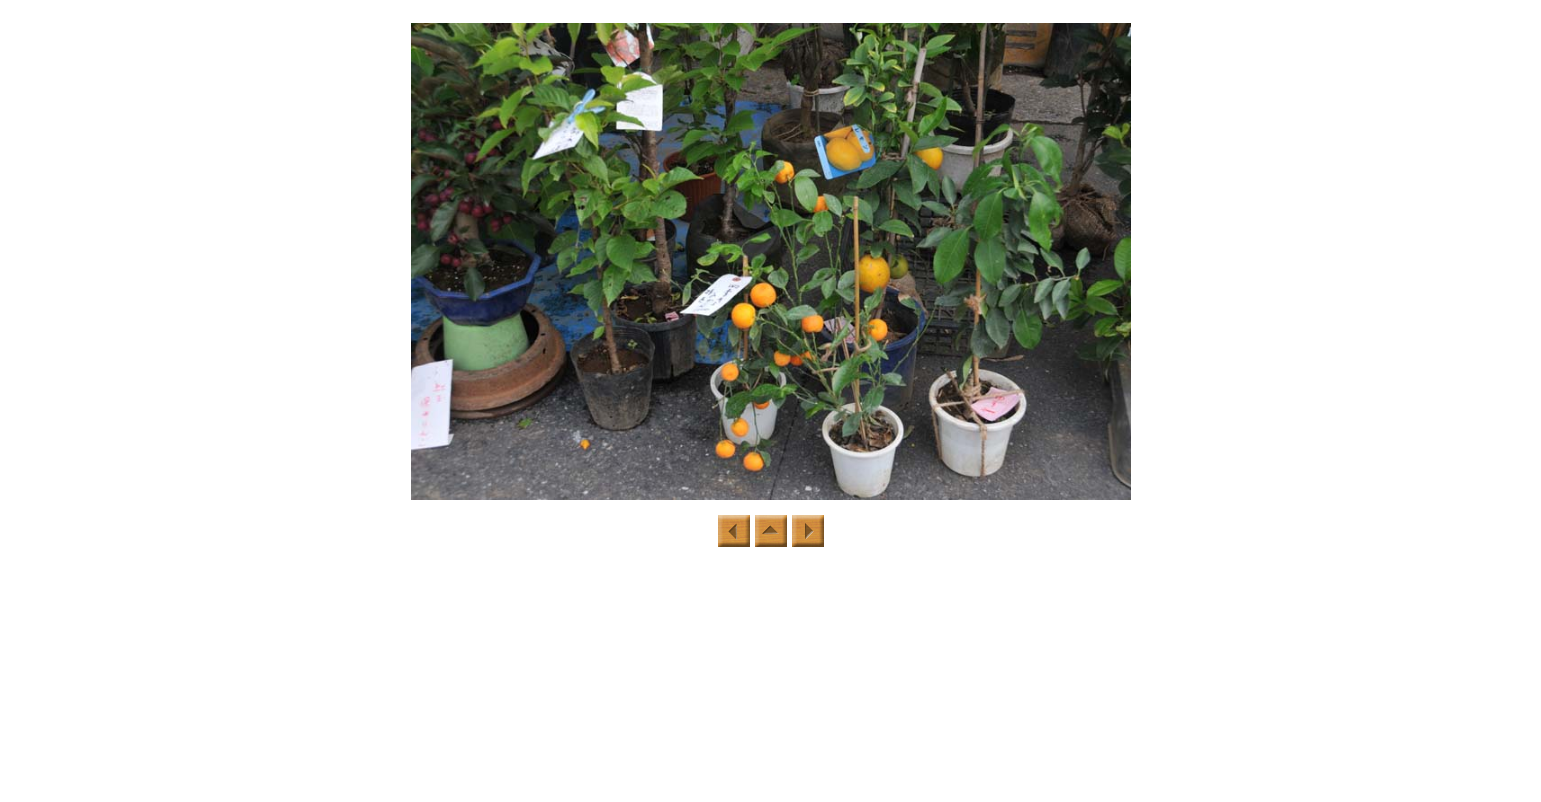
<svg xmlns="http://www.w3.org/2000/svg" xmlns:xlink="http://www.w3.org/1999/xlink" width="1541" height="802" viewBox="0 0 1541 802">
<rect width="100%" height="100%" fill="#ffffff"/>
<image xlink:href="image0.png" x="411" y="23" width="720" height="477"/>
<image xlink:href="image1.png" x="718" y="515" width="32" height="32"/>
<image xlink:href="image2.png" x="755" y="515" width="32" height="32"/>
<image xlink:href="image3.png" x="792" y="515" width="32" height="32"/>
</svg>
